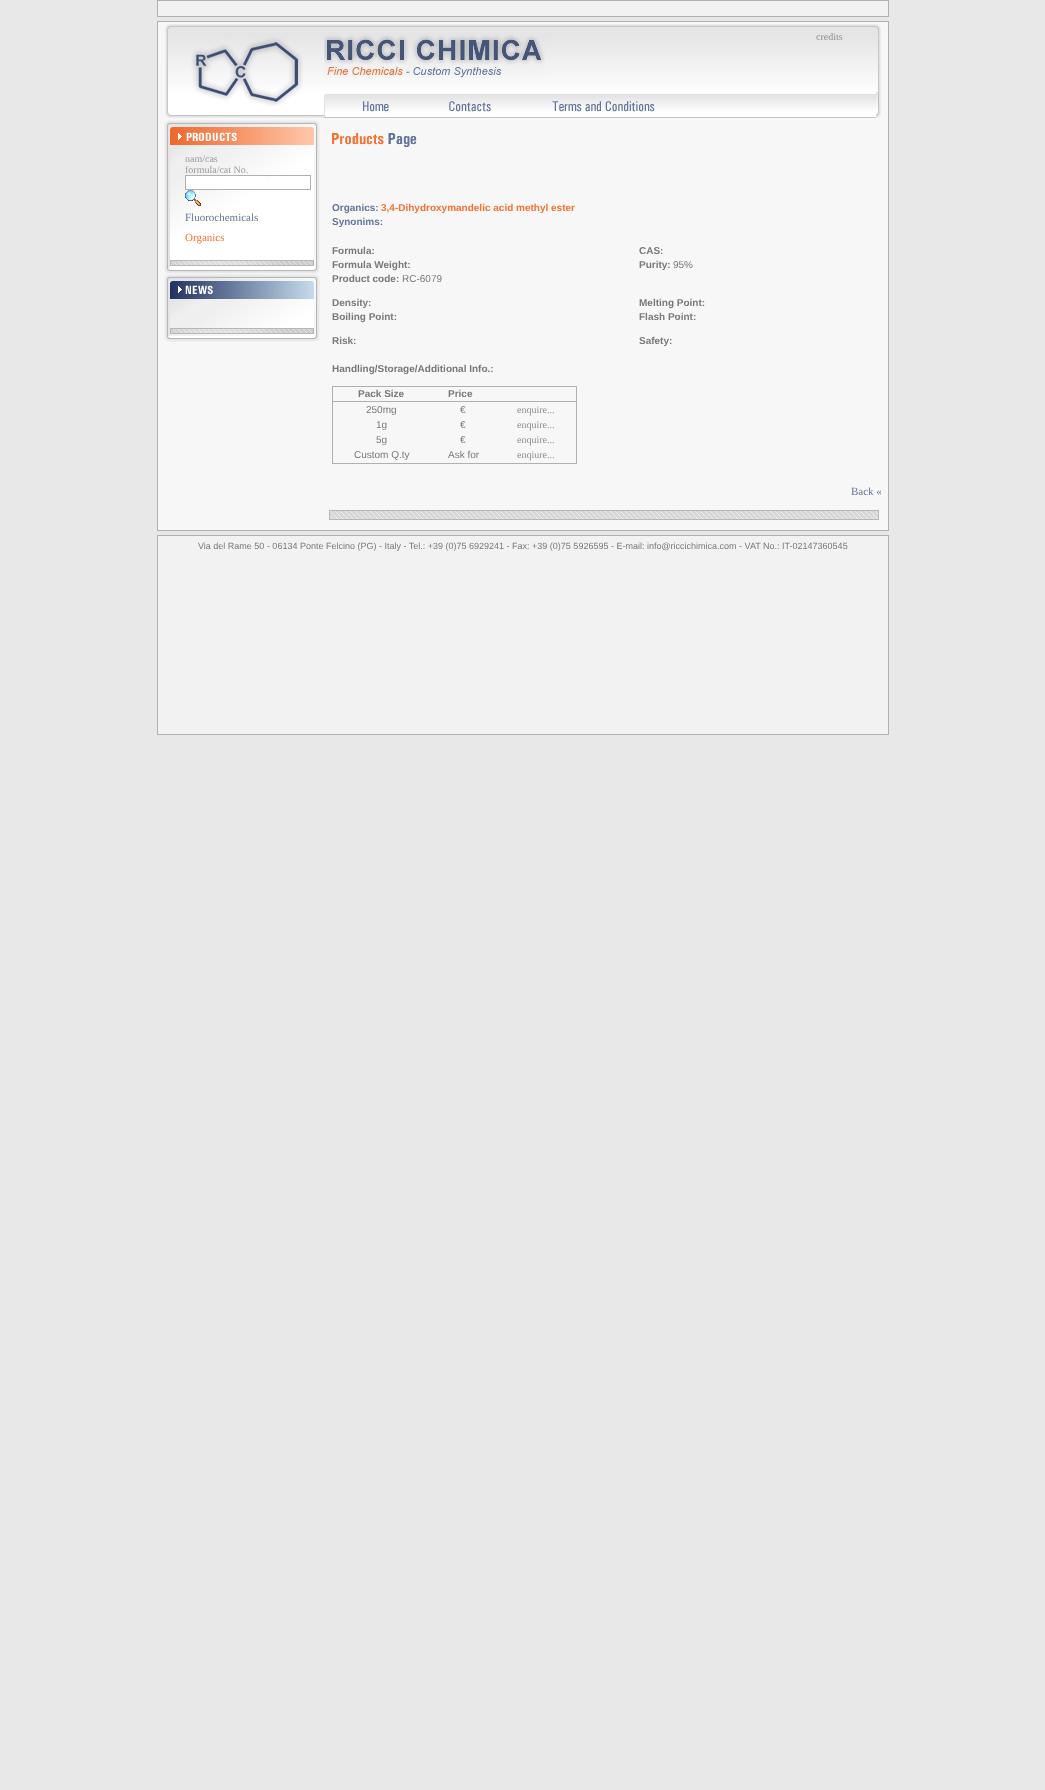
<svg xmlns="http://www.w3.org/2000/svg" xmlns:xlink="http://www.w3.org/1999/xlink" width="1045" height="1790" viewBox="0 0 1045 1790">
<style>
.cls-1{font:10px Liberation Serif;fill:#8d8d8d}
.cls-2{font:10px Liberation Serif;fill:#999999}
.cls-3{font:11px Liberation Serif;fill:#637699}
.cls-4{font:11px Liberation Serif;fill:#f67235}
.cls-5{font:bold 10px Liberation Sans;fill:#637699}
.cls-6{font:bold 10px Liberation Sans;fill:#f67235}
.cls-7{font:bold 10px Liberation Sans;fill:#797979}
.cls-8{font:10px Liberation Sans;fill:#797979}
.cls-9{font:9px Liberation Sans;fill:#797979}
</style>
<rect width="100%" height="100%" fill="#e8e8e8"/>
<rect fill="#b0b0b0" x="157" y="0" width="732" height="17"/>
<rect fill="#f2f2f2" x="158" y="1" width="730" height="15"/>
<rect fill="#b0b0b0" x="157" y="21" width="732" height="510"/>
<rect fill="#f7f7f7" x="158" y="22" width="730" height="508"/>
<image xlink:href="image0.png" x="165" y="24" width="6" height="94"/>
<image xlink:href="image1.png" x="171" y="24" width="705" height="94"/>
<image xlink:href="image2.png" x="191" y="37" width="112" height="69"/>
<image xlink:href="image3.png" x="324" y="34" width="221" height="44"/>
<image xlink:href="image4.png" x="324" y="94" width="2" height="24"/>
<image xlink:href="image5.png" x="326" y="94" width="550" height="24"/>
<image xlink:href="image6.png" x="363" y="101" width="26" height="11"/>
<image xlink:href="image7.png" x="449" y="101" width="42" height="11"/>
<image xlink:href="image8.png" x="552" y="101" width="103" height="11"/>
<image xlink:href="image9.png" x="876" y="24" width="5" height="94"/>
<image xlink:href="image10.png" x="164" y="120" width="156" height="7"/>
<image xlink:href="image11.png" x="164" y="127" width="6" height="2"/>
<image xlink:href="image12.png" x="170" y="127" width="144" height="2"/>
<image xlink:href="image13.png" x="316" y="127" width="4" height="2"/>
<image xlink:href="image14.png" x="164" y="129" width="6" height="16"/>
<image xlink:href="image15.png" x="170" y="129" width="144" height="16"/>
<image xlink:href="image16.png" x="178" y="132" width="59" height="9"/>
<image xlink:href="image17.png" x="316" y="129" width="4" height="16"/>
<image xlink:href="image18.png" x="164" y="145" width="6" height="123"/>
<image xlink:href="image19.png" x="170" y="145" width="144" height="123"/>
<rect fill="#ffffff" x="186" y="176" width="80" height="13"/>
<rect fill="none" stroke="#b0b0b0" x="185.5" y="175.5" width="125" height="14"/>
<image xlink:href="image20.png" x="185" y="190" width="16" height="16"/>
<image xlink:href="image21.png" x="170" y="260" width="144" height="6"/>
<image xlink:href="image22.png" x="316" y="145" width="4" height="123"/>
<image xlink:href="image23.png" x="164" y="268" width="156" height="6"/>
<image xlink:href="image10.png" x="164" y="274" width="156" height="7"/>
<image xlink:href="image11.png" x="164" y="281" width="6" height="2"/>
<image xlink:href="image24.png" x="170" y="281" width="144" height="2"/>
<image xlink:href="image13.png" x="316" y="281" width="4" height="2"/>
<image xlink:href="image14.png" x="164" y="283" width="6" height="16"/>
<image xlink:href="image25.png" x="170" y="283" width="144" height="16"/>
<image xlink:href="image26.png" x="178" y="285" width="35" height="9"/>
<image xlink:href="image17.png" x="316" y="283" width="4" height="16"/>
<image xlink:href="image27.png" x="164" y="299" width="6" height="37"/>
<image xlink:href="image28.png" x="170" y="299" width="144" height="37"/>
<image xlink:href="image21.png" x="170" y="328" width="144" height="6"/>
<image xlink:href="image29.png" x="316" y="299" width="4" height="37"/>
<image xlink:href="image23.png" x="164" y="336" width="156" height="6"/>
<image xlink:href="image30.png" x="332" y="133" width="85" height="14"/>
<rect fill="#b0b0b0" x="332" y="386" width="245" height="78"/>
<rect fill="#f7f7f7" x="333" y="387" width="243" height="14"/>
<rect fill="#f7f7f7" x="333" y="402" width="243" height="61"/>
<rect fill="#b8b8b8" x="329" y="510" width="1" height="10"/>
<image xlink:href="image31.png" x="330" y="510" width="548" height="10"/>
<rect fill="#b8b8b8" x="878" y="510" width="1" height="10"/>
<rect fill="#b0b0b0" x="157" y="535" width="732" height="200"/>
<rect fill="#f2f2f2" x="158" y="536" width="730" height="198"/>
<text class="cls-1" x="816" y="40">credits</text>
<text class="cls-2"><tspan x="185" y="162">nam/cas</tspan><tspan x="185" y="173">formula/cat No.</tspan></text>
<text class="cls-3" x="185" y="221">Fluorochemicals</text>
<text class="cls-4" x="185" y="241">Organics</text>
<text class="cls-5" x="332" y="211">Organics:</text>
<text class="cls-6" x="381" y="211">3,4-Dihydroxymandelic acid methyl ester</text>
<text class="cls-5" x="332" y="225">Synonims:</text>
<text class="cls-7" x="332" y="254">Formula:</text>
<text class="cls-7" x="639" y="254">CAS:</text>
<text class="cls-7" x="332" y="268">Formula Weight:</text>
<text class="cls-7" x="639" y="268">Purity:</text>
<text class="cls-8" x="673" y="268">95%</text>
<text class="cls-7" x="332" y="282">Product code:</text>
<text class="cls-8" x="402" y="282">RC-6079</text>
<text class="cls-7" x="332" y="306">Density:</text>
<text class="cls-7" x="639" y="306">Melting Point:</text>
<text class="cls-7" x="332" y="320">Boiling Point:</text>
<text class="cls-7" x="639" y="320">Flash Point:</text>
<text class="cls-7" x="332" y="344">Risk:</text>
<text class="cls-7" x="639" y="344">Safety:</text>
<text class="cls-7" x="332" y="372">Handling/Storage/Additional Info.:</text>
<text class="cls-7" x="358" y="397">Pack Size</text>
<text class="cls-7" x="448" y="397">Price</text>
<text class="cls-8" x="366" y="413">250mg</text>
<text class="cls-8" x="460" y="413">€</text>
<text class="cls-1" x="517" y="413">enquire...</text>
<text class="cls-8" x="376" y="428">1g</text>
<text class="cls-8" x="460" y="428">€</text>
<text class="cls-1" x="517" y="428">enquire...</text>
<text class="cls-8" x="376" y="443">5g</text>
<text class="cls-8" x="460" y="443">€</text>
<text class="cls-1" x="517" y="443">enquire...</text>
<text class="cls-8" x="354" y="458">Custom Q.ty</text>
<text class="cls-8" x="448" y="458">Ask for</text>
<text class="cls-1" x="517" y="458">enqiure...</text>
<text class="cls-3" x="851" y="495">Back «</text>
<text class="cls-9" x="198" y="549">Via del Rame 50 - 06134 Ponte Felcino (PG) - Italy - Tel.: +39 (0)75 6929241 - Fax: +39 (0)75 5926595 - E-mail: info@riccichimica.com - VAT No.: IT-02147360545</text>
</svg>
